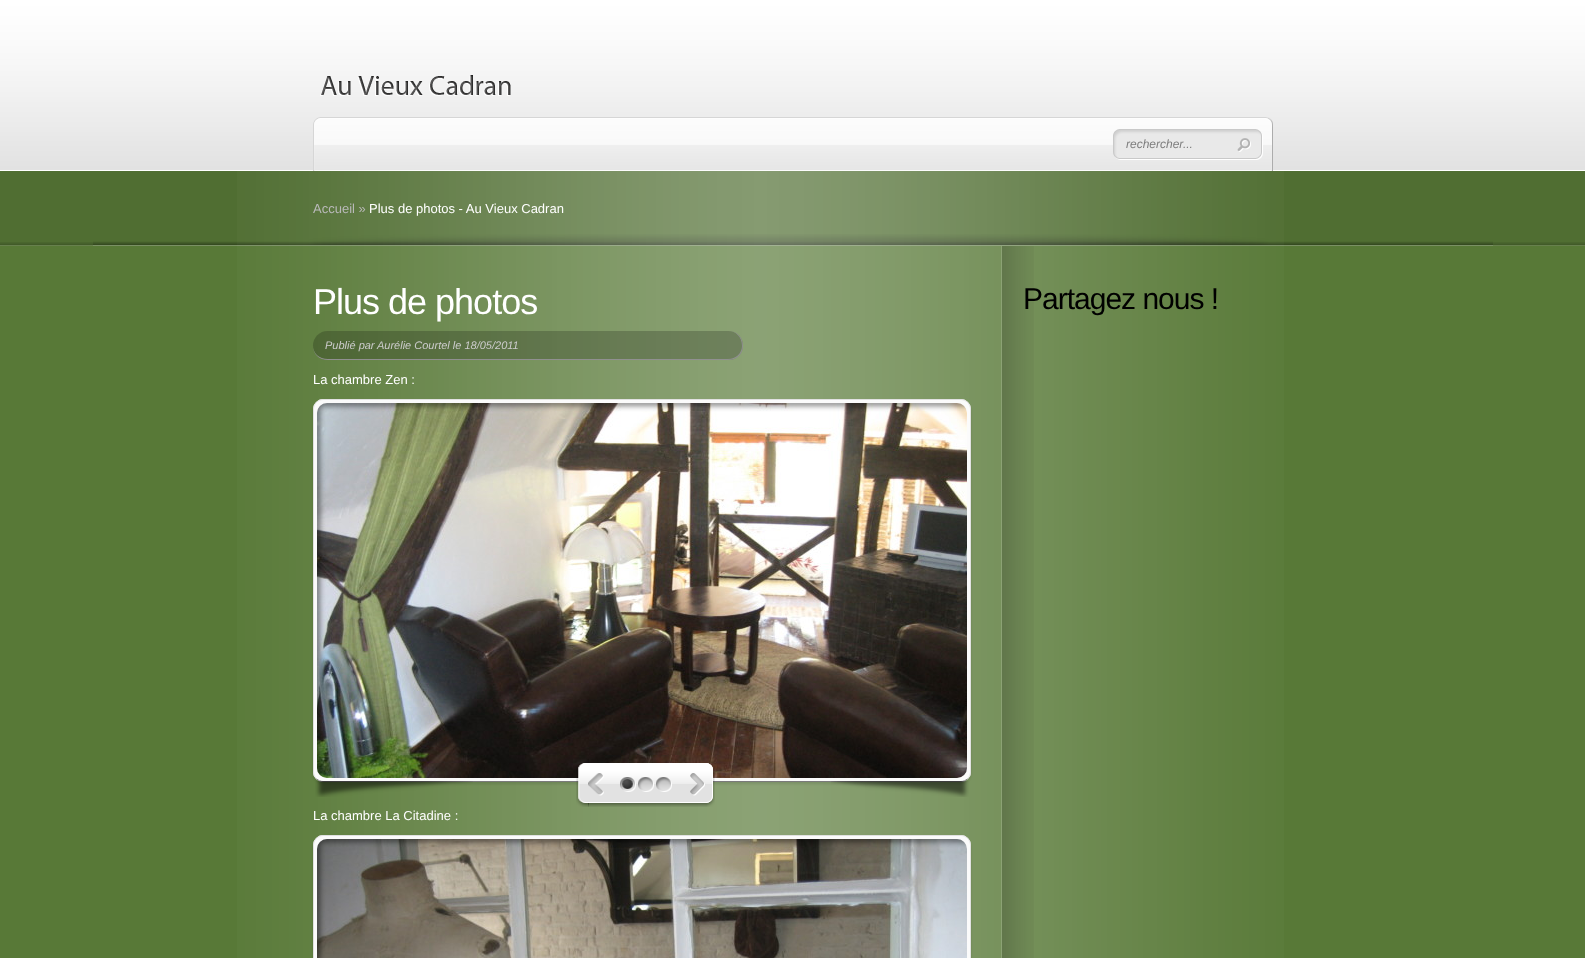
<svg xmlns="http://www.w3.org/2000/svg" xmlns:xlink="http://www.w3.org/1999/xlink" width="1585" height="958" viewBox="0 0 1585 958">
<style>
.cls-1{font:italic 12px Liberation Sans;fill:#7d7d7d}
.cls-2{font:13px Liberation Sans;fill:#b9b9b9}
.cls-3{font:13px Liberation Sans;fill:#ffffff}
.cls-4{font:36px Liberation Sans;letter-spacing:-1px;fill:#ffffff}
.cls-5{font:italic 11px Liberation Sans;fill:#cccccc}
.cls-6{font:30px Liberation Sans;letter-spacing:-1px;fill:#000000}
</style>
<rect width="100%" height="100%" fill="#587937"/>
<rect fill="#506e32" x="0" y="171" width="1585" height="75"/>
<image xlink:href="image0.png" x="0" y="0" width="1585" height="170"/>
<rect fill="#ffffff" x="0" y="170" width="1585" height="1"/>
<image xlink:href="image1.png" x="320" y="75" width="191" height="21"/>
<image xlink:href="image2.png" x="313" y="117" width="960" height="54"/>
<image xlink:href="image3.png" x="1113" y="129" width="150" height="31"/>
<image xlink:href="image4.png" x="1237" y="138" width="14" height="14"/>
<image xlink:href="image5.png" x="0" y="242" width="1585" height="4"/>
<image xlink:href="image6.png" x="93" y="234" width="1400" height="12"/>
<image xlink:href="image7.png" x="237" y="171" width="1047" height="75"/>
<image xlink:href="image8.png" x="237" y="246" width="1047" height="712"/>
<image xlink:href="image9.png" x="1001" y="246" width="33" height="712"/>
<rect fill="#000000" fill-opacity="0.2" x="313" y="331" width="430" height="29" rx="14.5"/>
<path fill="#909090" fill-rule="evenodd" d="M328 331H728C737 331 743 337 743 346C743 354 737 360 728 360H328C319 360 313 354 313 346C313 337 319 331 328 331ZM328 331H728C736 331 742 337 742 346C742 353 736 359 728 359H328C319 359 313 353 313 346C313 337 319 331 328 331Z"/>
<rect fill="#000000" fill-opacity="0.1" filter="blur(1px)" x="313" y="401" width="658" height="383" rx="10"/>
<rect fill="#fbfbfb" x="313" y="399" width="658" height="383" rx="10"/>
<path fill="none" stroke="#7a7a7a" d="M967.5 778.5C966 780.5 963.5 781.5 961 781.5H323C320.5 781.5 318 780.5 316.5 778.5"/>
<path fill="none" stroke="#e1e1e1" d="M316.5 778.5C314.5 777 313.5 774.5 313.5 772V409C313.5 406.5 314.5 404 316.5 402.5C318 400.5 320.5 399.5 323 399.5H961C963.5 399.5 966 400.5 967.5 402.5C969.5 404 970.5 406.5 970.5 409V772C970.5 774.5 969.5 777 967.5 778.5"/>
<image xlink:href="image10.png" x="317" y="403" width="650" height="375"/>
<image xlink:href="image11.png" x="317" y="403" width="649" height="374"/>
<image xlink:href="image12.png" x="315" y="781" width="158" height="16"/>
<image xlink:href="image13.png" x="576" y="763" width="13" height="44"/>
<image xlink:href="image14.png" x="588" y="763" width="119" height="44"/>
<image xlink:href="image15.png" x="588" y="773" width="16" height="23"/>
<image xlink:href="image16.png" x="620" y="777" width="16" height="15"/>
<image xlink:href="image17.png" x="638" y="777" width="16" height="15"/>
<image xlink:href="image17.png" x="656" y="777" width="16" height="15"/>
<image xlink:href="image18.png" x="690" y="773" width="15" height="23"/>
<image xlink:href="image19.png" x="707" y="763" width="8" height="44"/>
<image xlink:href="image20.png" x="831" y="781" width="138" height="16"/>
<rect fill="#000000" fill-opacity="0.1" filter="blur(1px)" x="313" y="837" width="658" height="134" rx="10"/>
<rect fill="#fbfbfb" x="313" y="835" width="658" height="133" rx="10"/>
<path fill="none" stroke="#e1e1e1" d="M316.5 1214.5C314.5 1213 313.5 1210.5 313.5 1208V845C313.5 842.5 314.5 840 316.5 838.5C318 836.5 320.5 835.5 323 835.5H961C963.5 835.5 966 836.5 967.5 838.5C969.5 840 970.5 842.5 970.5 845V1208C970.5 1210.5 969.5 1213 967.5 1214.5"/>
<image xlink:href="image21.png" x="317" y="839" width="650" height="119"/>
<image xlink:href="image22.png" x="317" y="839" width="649" height="119"/>
<text class="cls-1" x="1126" y="148">rechercher...</text>
<text class="cls-2" x="313" y="213">Accueil »</text>
<text class="cls-3" x="369" y="213">Plus de photos - Au Vieux Cadran</text>
<text class="cls-4" x="313" y="314">Plus de photos</text>
<text class="cls-5" x="325" y="349">Publié par</text>
<text class="cls-5" x="377" y="349">Aurélie Courtel le 18/05/2011</text>
<text class="cls-3" x="313" y="384">La chambre Zen :</text>
<text class="cls-3" x="313" y="820">La chambre La Citadine :</text>
<text class="cls-6" x="1023" y="309">Partagez nous !</text>
</svg>
